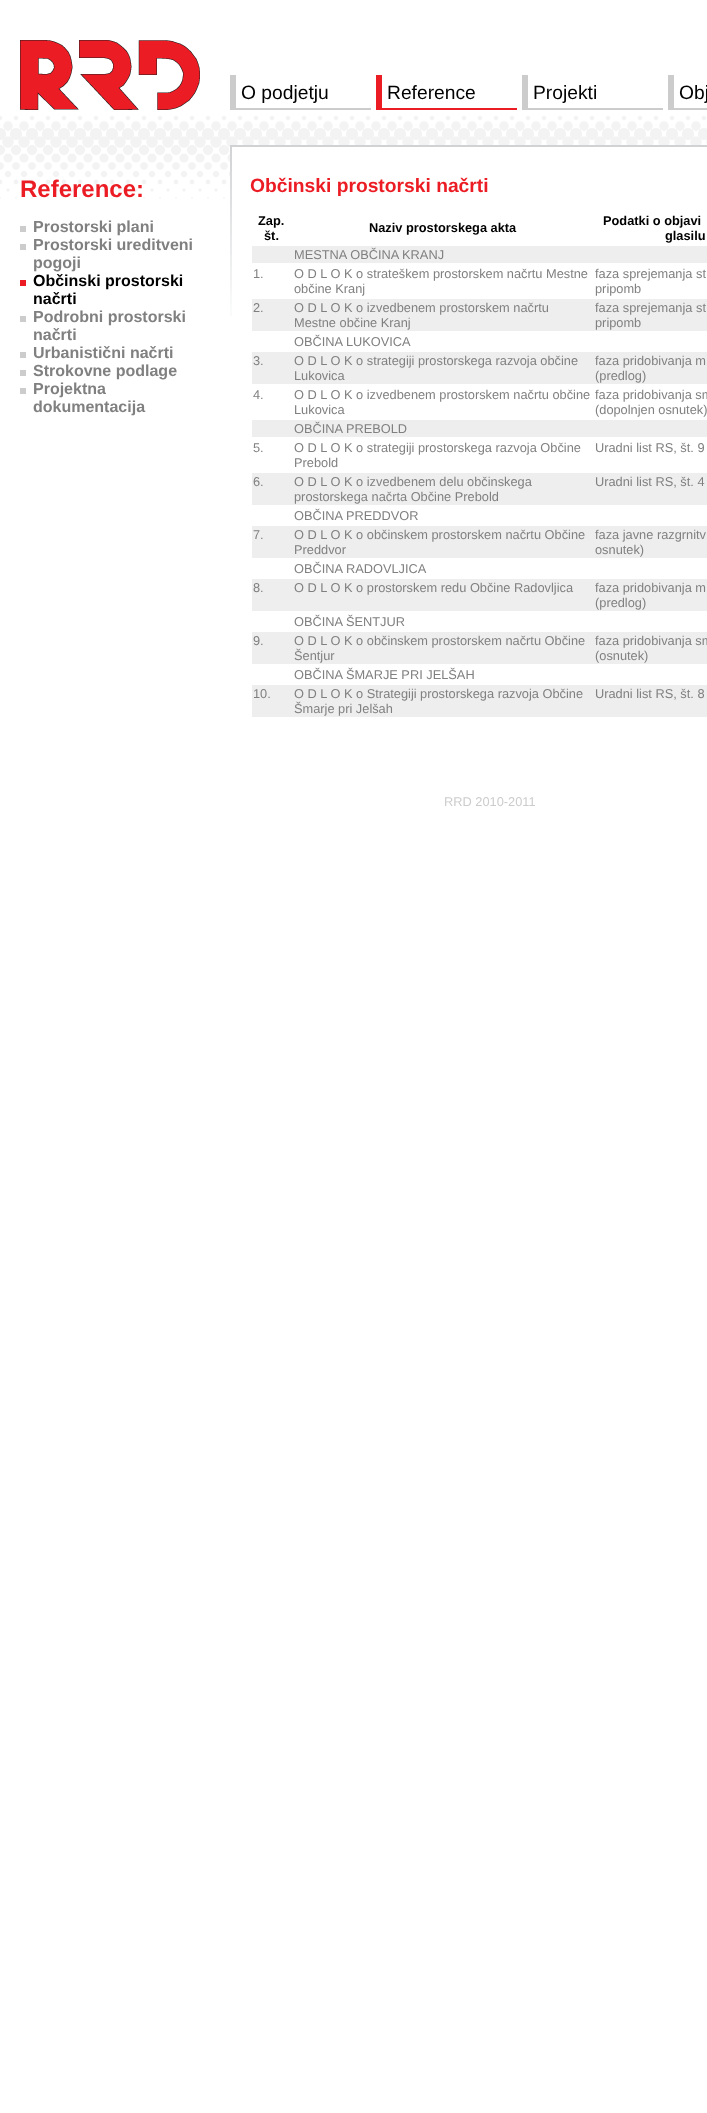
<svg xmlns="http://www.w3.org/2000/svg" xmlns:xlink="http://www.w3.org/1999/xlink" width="707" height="2113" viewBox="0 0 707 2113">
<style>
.cls-1{font:19.25px Liberation Sans;fill:#000000}
.cls-2{font:bold 24px Liberation Sans;fill:#ec1c24}
.cls-3{font:bold 16px Liberation Sans;fill:#808080}
.cls-4{font:bold 16px Liberation Sans;fill:#000000}
.cls-5{font:bold 19.25px Liberation Sans;fill:#ec1c24}
.cls-6{font:bold 12.8px Liberation Sans;fill:#000000}
.cls-7{font:12.8px Liberation Sans;fill:#808080}
.cls-8{font:12.8px Liberation Sans;fill:#cccccc}
</style>
<rect width="100%" height="100%" fill="#ffffff"/>
<image xlink:href="image0.png" x="0" y="116" width="707" height="83"/>
<image xlink:href="image1.png" x="20" y="40" width="180" height="70"/>
<rect fill="#cccccc" x="230" y="108" width="141" height="2"/>
<rect fill="#cccccc" x="230" y="75" width="6" height="35"/>
<rect fill="#ec1c24" x="376" y="108" width="141" height="2"/>
<rect fill="#ec1c24" x="376" y="75" width="6" height="35"/>
<rect fill="#cccccc" x="522" y="108" width="141" height="2"/>
<rect fill="#cccccc" x="522" y="75" width="6" height="35"/>
<rect fill="#cccccc" x="668" y="108" width="39" height="2"/>
<rect fill="#cccccc" x="668" y="75" width="6" height="35"/>
<rect fill="#cccccc" x="20" y="226" width="6" height="6"/>
<rect fill="#cccccc" x="20" y="244" width="6" height="6"/>
<rect fill="#ec1c24" x="20" y="280" width="6" height="6"/>
<rect fill="#cccccc" x="20" y="316" width="6" height="6"/>
<rect fill="#cccccc" x="20" y="352" width="6" height="6"/>
<rect fill="#cccccc" x="20" y="370" width="6" height="6"/>
<rect fill="#cccccc" x="20" y="388" width="6" height="6"/>
<image xlink:href="image2.png" x="230" y="145" width="477" height="171"/>
<rect fill="#eeeeee" x="252" y="246" width="455" height="17"/>
<rect fill="#eeeeee" x="252" y="299" width="455" height="32"/>
<rect fill="#eeeeee" x="252" y="352" width="455" height="32"/>
<rect fill="#eeeeee" x="252" y="420" width="455" height="17"/>
<rect fill="#eeeeee" x="252" y="473" width="455" height="32"/>
<rect fill="#eeeeee" x="252" y="526" width="455" height="32"/>
<rect fill="#eeeeee" x="252" y="579" width="455" height="32"/>
<rect fill="#eeeeee" x="252" y="632" width="455" height="32"/>
<rect fill="#eeeeee" x="252" y="685" width="455" height="32"/>
<text class="cls-1" x="241" y="99">O podjetju</text>
<text class="cls-1" x="387" y="99">Reference</text>
<text class="cls-1" x="533" y="99">Projekti</text>
<text class="cls-1" x="679" y="99">Obj</text>
<text class="cls-2" x="20" y="197">Reference:</text>
<text class="cls-3"><tspan x="33" y="232">Prostorski plani</tspan><tspan x="33" y="250">Prostorski ureditveni</tspan><tspan x="33" y="268">pogoji</tspan></text>
<text class="cls-4"><tspan x="33" y="286">Občinski prostorski</tspan><tspan x="33" y="304">načrti</tspan></text>
<text class="cls-3"><tspan x="33" y="322">Podrobni prostorski</tspan><tspan x="33" y="340">načrti</tspan><tspan x="33" y="358">Urbanistični načrti</tspan><tspan x="33" y="376">Strokovne podlage</tspan><tspan x="33" y="394">Projektna</tspan><tspan x="33" y="412">dokumentacija</tspan></text>
<text class="cls-5" x="250" y="192">Občinski prostorski načrti</text>
<text class="cls-6" x="258" y="225">Zap.</text>
<text class="cls-6" x="264" y="240">št.</text>
<text class="cls-6" x="369" y="232">Naziv prostorskega akta</text>
<text class="cls-6" x="603" y="225">Podatki o objavi</text>
<text class="cls-6" x="665" y="240">glasilu</text>
<text class="cls-7" x="294" y="259">MESTNA OBČINA KRANJ</text>
<text class="cls-7" x="253" y="278">1.</text>
<text class="cls-7"><tspan x="294" y="278">O D L O K o strateškem prostorskem načrtu Mestne</tspan><tspan x="294" y="293">občine Kranj</tspan></text>
<text class="cls-7"><tspan x="595" y="278">faza sprejemanja st</tspan><tspan x="595" y="293">pripomb</tspan></text>
<text class="cls-7" x="253" y="312">2.</text>
<text class="cls-7"><tspan x="294" y="312">O D L O K o izvedbenem prostorskem načrtu</tspan><tspan x="294" y="327">Mestne občine Kranj</tspan></text>
<text class="cls-7"><tspan x="595" y="312">faza sprejemanja st</tspan><tspan x="595" y="327">pripomb</tspan></text>
<text class="cls-7" x="294" y="346">OBČINA LUKOVICA</text>
<text class="cls-7" x="253" y="365">3.</text>
<text class="cls-7"><tspan x="294" y="365">O D L O K o strategiji prostorskega razvoja občine</tspan><tspan x="294" y="380">Lukovica</tspan></text>
<text class="cls-7"><tspan x="595" y="365">faza pridobivanja m</tspan><tspan x="595" y="380">(predlog)</tspan></text>
<text class="cls-7" x="253" y="399">4.</text>
<text class="cls-7"><tspan x="294" y="399">O D L O K o izvedbenem prostorskem načrtu občine</tspan><tspan x="294" y="414">Lukovica</tspan></text>
<text class="cls-7"><tspan x="595" y="399">faza pridobivanja sm</tspan><tspan x="595" y="414">(dopolnjen osnutek)</tspan></text>
<text class="cls-7" x="294" y="433">OBČINA PREBOLD</text>
<text class="cls-7" x="253" y="452">5.</text>
<text class="cls-7"><tspan x="294" y="452">O D L O K o strategiji prostorskega razvoja Občine</tspan><tspan x="294" y="467">Prebold</tspan></text>
<text class="cls-7" x="595" y="452">Uradni list RS, št. 9</text>
<text class="cls-7" x="253" y="486">6.</text>
<text class="cls-7"><tspan x="294" y="486">O D L O K o izvedbenem delu občinskega</tspan><tspan x="294" y="501">prostorskega načrta Občine Prebold</tspan></text>
<text class="cls-7" x="595" y="486">Uradni list RS, št. 4</text>
<text class="cls-7" x="294" y="520">OBČINA PREDDVOR</text>
<text class="cls-7" x="253" y="539">7.</text>
<text class="cls-7"><tspan x="294" y="539">O D L O K o občinskem prostorskem načrtu Občine</tspan><tspan x="294" y="554">Preddvor</tspan></text>
<text class="cls-7"><tspan x="595" y="539">faza javne razgrnitv</tspan><tspan x="595" y="554">osnutek)</tspan></text>
<text class="cls-7" x="294" y="573">OBČINA RADOVLJICA</text>
<text class="cls-7" x="253" y="592">8.</text>
<text class="cls-7" x="294" y="592">O D L O K o prostorskem redu Občine Radovljica</text>
<text class="cls-7"><tspan x="595" y="592">faza pridobivanja m</tspan><tspan x="595" y="607">(predlog)</tspan></text>
<text class="cls-7" x="294" y="626">OBČINA ŠENTJUR</text>
<text class="cls-7" x="253" y="645">9.</text>
<text class="cls-7"><tspan x="294" y="645">O D L O K o občinskem prostorskem načrtu Občine</tspan><tspan x="294" y="660">Šentjur</tspan></text>
<text class="cls-7"><tspan x="595" y="645">faza pridobivanja sm</tspan><tspan x="595" y="660">(osnutek)</tspan></text>
<text class="cls-7" x="294" y="679">OBČINA ŠMARJE PRI JELŠAH</text>
<text class="cls-7" x="253" y="698">10.</text>
<text class="cls-7"><tspan x="294" y="698">O D L O K o Strategiji prostorskega razvoja Občine</tspan><tspan x="294" y="713">Šmarje pri Jelšah</tspan></text>
<text class="cls-7" x="595" y="698">Uradni list RS, št. 8</text>
<text class="cls-8" x="444" y="806">RRD 2010-2011</text>
</svg>
